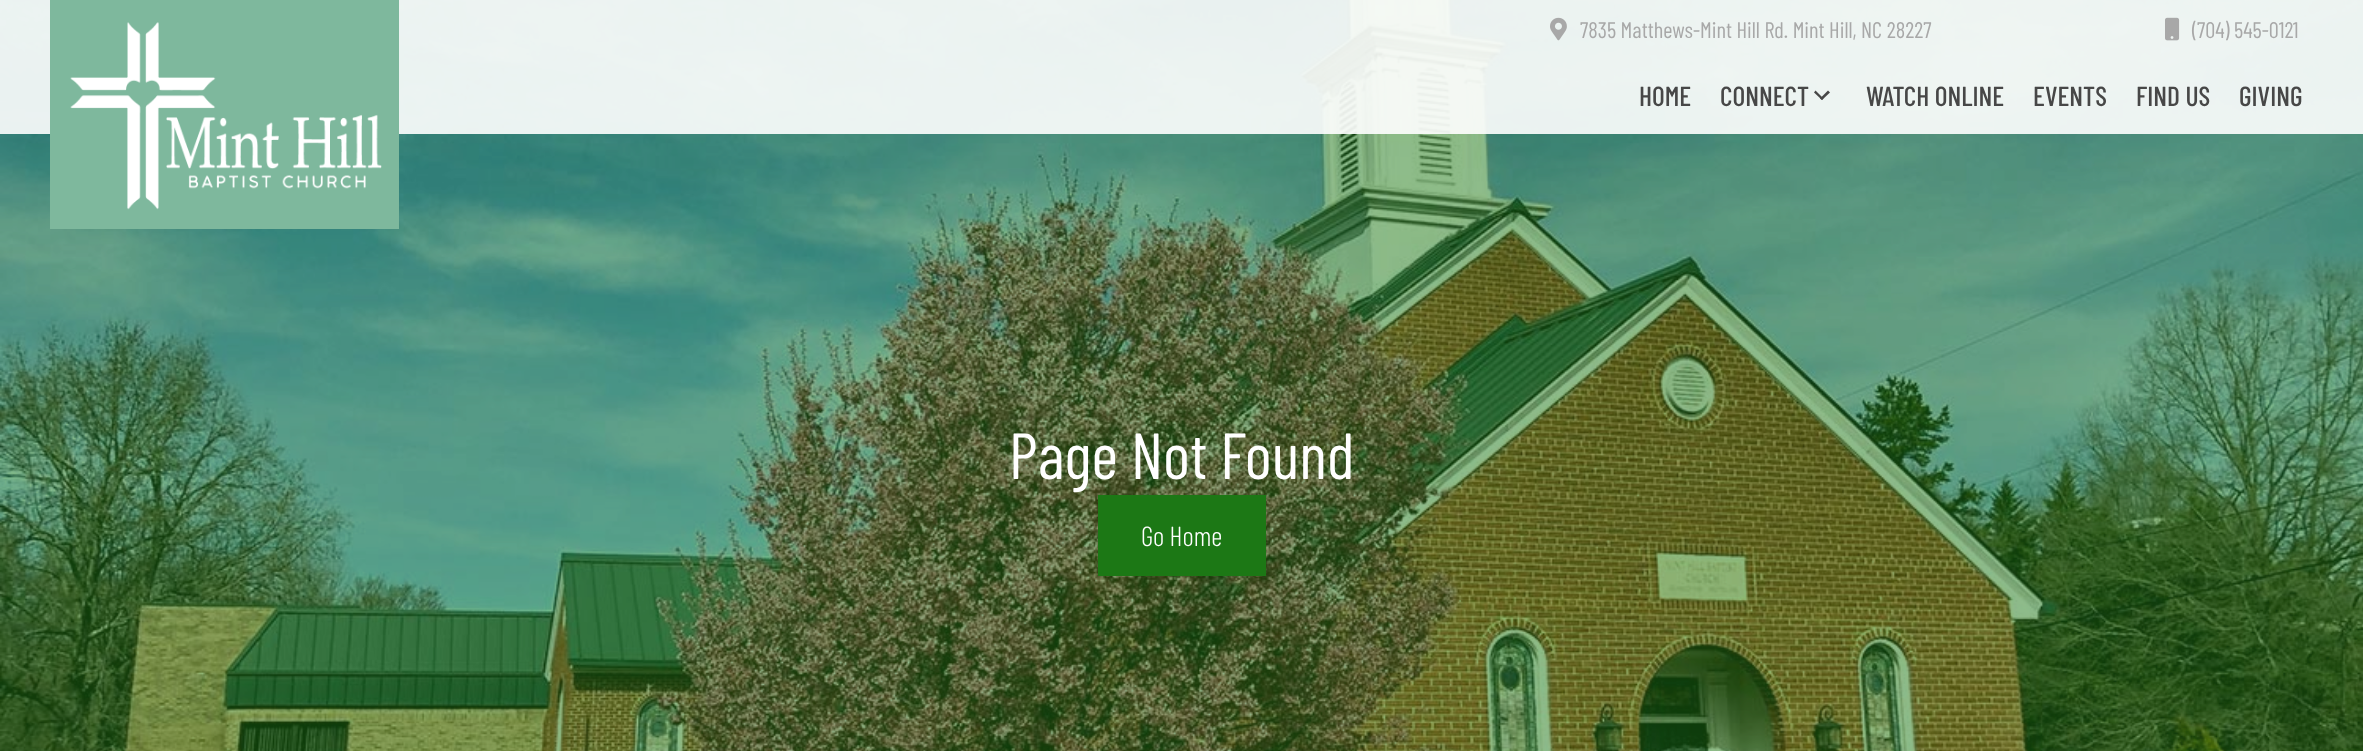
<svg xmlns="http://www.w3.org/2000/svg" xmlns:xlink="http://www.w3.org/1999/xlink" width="2363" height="751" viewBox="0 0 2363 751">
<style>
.cls-1{font:22.5px Barlow Condensed;fill:#a8a8a8}
.cls-2{font:500 27.5px Barlow Condensed;fill:#474747}
.cls-3{font:65px Barlow Condensed;fill:#ffffff}
.cls-4{font:300 27.5px Barlow Condensed;fill:#ffffff}
</style>
<rect width="100%" height="100%" fill="#ffffff"/>
<image xlink:href="image3.png" x="0" y="0" width="2363" height="751"/>
<rect fill="#ffffff" fill-opacity="0.9" x="0" y="0" width="2363" height="134"/>
<rect fill="#7eb89d" x="50" y="0" width="349" height="229"/>
<image xlink:href="image0.png" x="70" y="22" width="312" height="188"/>
<image xlink:href="image1.png" x="1550" y="17" width="17" height="24"/>
<image xlink:href="image2.png" x="2165" y="17" width="15" height="24"/>
<path fill="#474747" d="M1828 90.5L1830 92.5L1822 100L1820 98.5Z"/>
<path fill="#474747" d="M1815.5 90.5L1823.5 98.5L1822 100L1814 92.5Z"/>
<rect fill="#1c7815" x="1098" y="495" width="168" height="81"/>
<text class="cls-1" x="1580" y="38">7835 Matthews-Mint Hill Rd. Mint Hill, NC 28227</text>
<text class="cls-1" x="2192" y="38">(704) 545-0121</text>
<text class="cls-2" x="1639" y="106">HOME</text>
<text class="cls-2" x="1720" y="106">CONNECT</text>
<text class="cls-2" x="1866" y="106">WATCH ONLINE</text>
<text class="cls-2" x="2033" y="106">EVENTS</text>
<text class="cls-2" x="2136" y="106">FIND US</text>
<text class="cls-2" x="2239" y="106">GIVING</text>
<text class="cls-3" x="1009" y="479">Page Not Found</text>
<text class="cls-4" x="1141" y="546">Go Home</text>
</svg>
